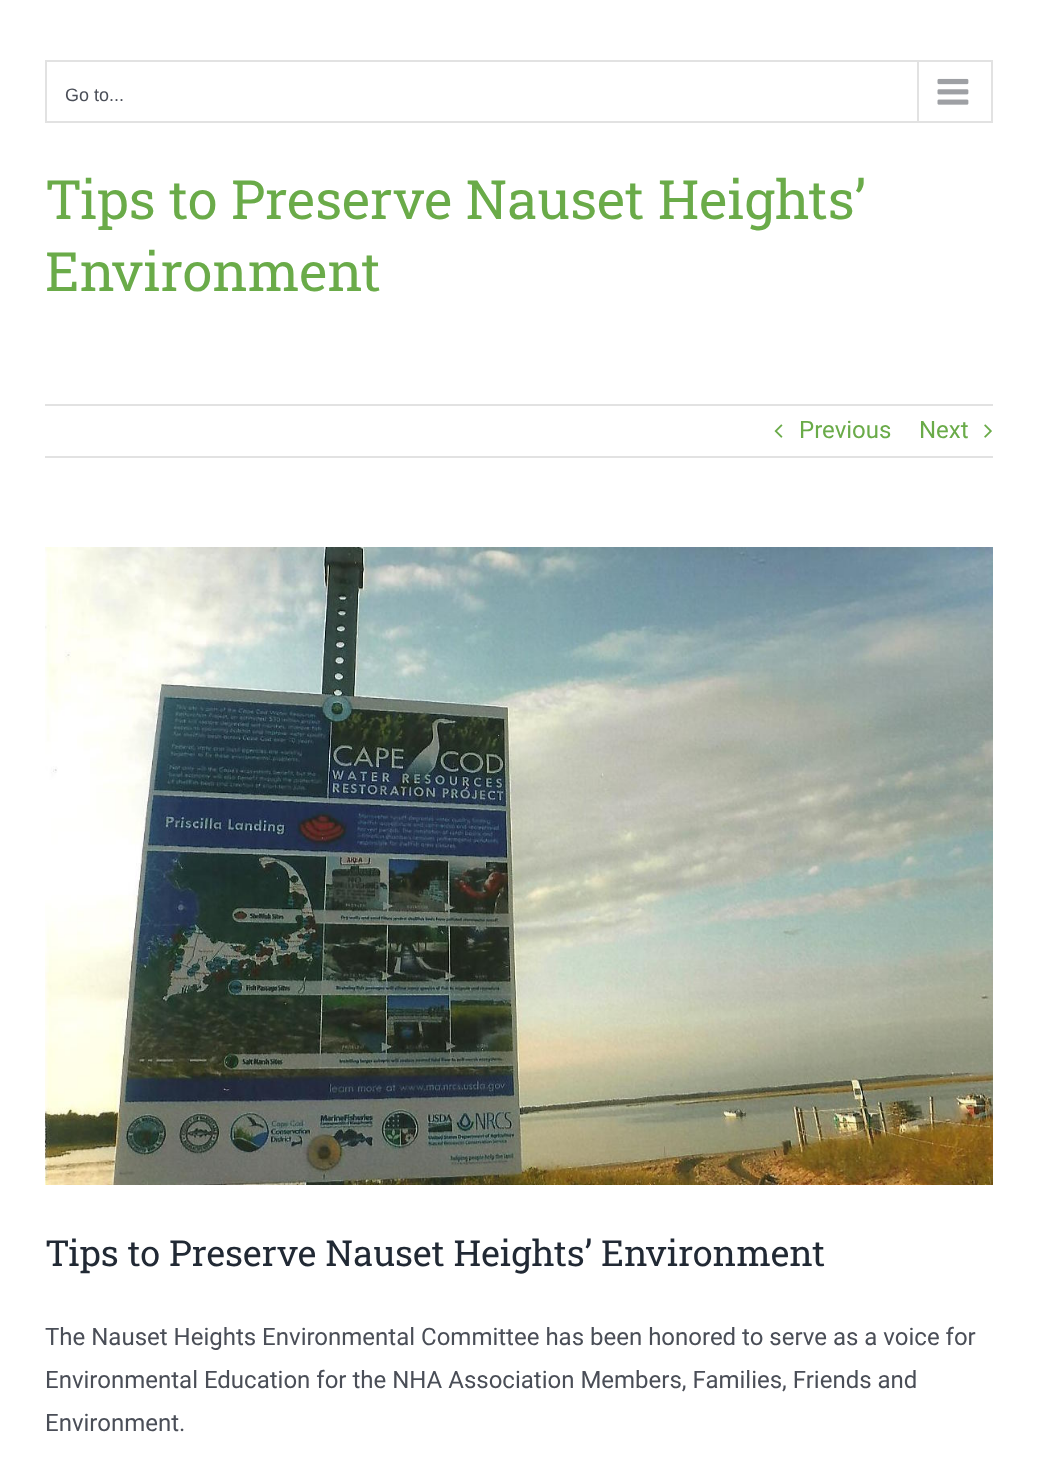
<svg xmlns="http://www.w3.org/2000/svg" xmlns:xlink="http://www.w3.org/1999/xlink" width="1038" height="1473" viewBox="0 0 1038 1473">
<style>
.cls-1{font:18px Liberation Sans;fill:#4a4e57}
.cls-2{font:54px Roboto Slab;fill:#6aab49}
.cls-3{font:24px Roboto;fill:#6aab49}
.cls-4{font:36px Roboto Slab;fill:#212934}
.cls-5{font:24px Roboto;fill:#4a4e57}
</style>
<rect width="100%" height="100%" fill="#ffffff"/>
<rect fill="none" stroke="#e2e2e2" stroke-width="2" x="46" y="61" width="946" height="61"/>
<rect fill="#e2e2e2" x="917" y="62" width="2" height="60"/>
<image xlink:href="image0.png" x="937" y="78" width="32" height="27"/>
<rect fill="#e2e2e2" x="45" y="404" width="948" height="2"/>
<rect fill="#e2e2e2" x="45" y="456" width="948" height="2"/>
<image xlink:href="image1.png" x="774" y="424" width="9" height="14"/>
<image xlink:href="image2.png" x="984" y="424" width="8" height="14"/>
<image xlink:href="image3.png" x="45" y="547" width="948" height="638"/>
<text class="cls-1" x="65" y="101">Go to...</text>
<text class="cls-2"><tspan x="45" y="219">Tips to Preserve Nauset Heights’</tspan><tspan x="45" y="291">Environment</tspan></text>
<text class="cls-3" x="799" y="438">Previous</text>
<text class="cls-3" x="919" y="438">Next</text>
<text class="cls-4" x="45" y="1266">Tips to Preserve Nauset Heights’ Environment</text>
<text class="cls-5"><tspan x="45" y="1345">The Nauset Heights Environmental Committee has been honored to serve as a voice for</tspan><tspan x="45" y="1388">Environmental Education for the NHA Association Members, Families, Friends and</tspan><tspan x="45" y="1431">Environment.</tspan></text>
</svg>
